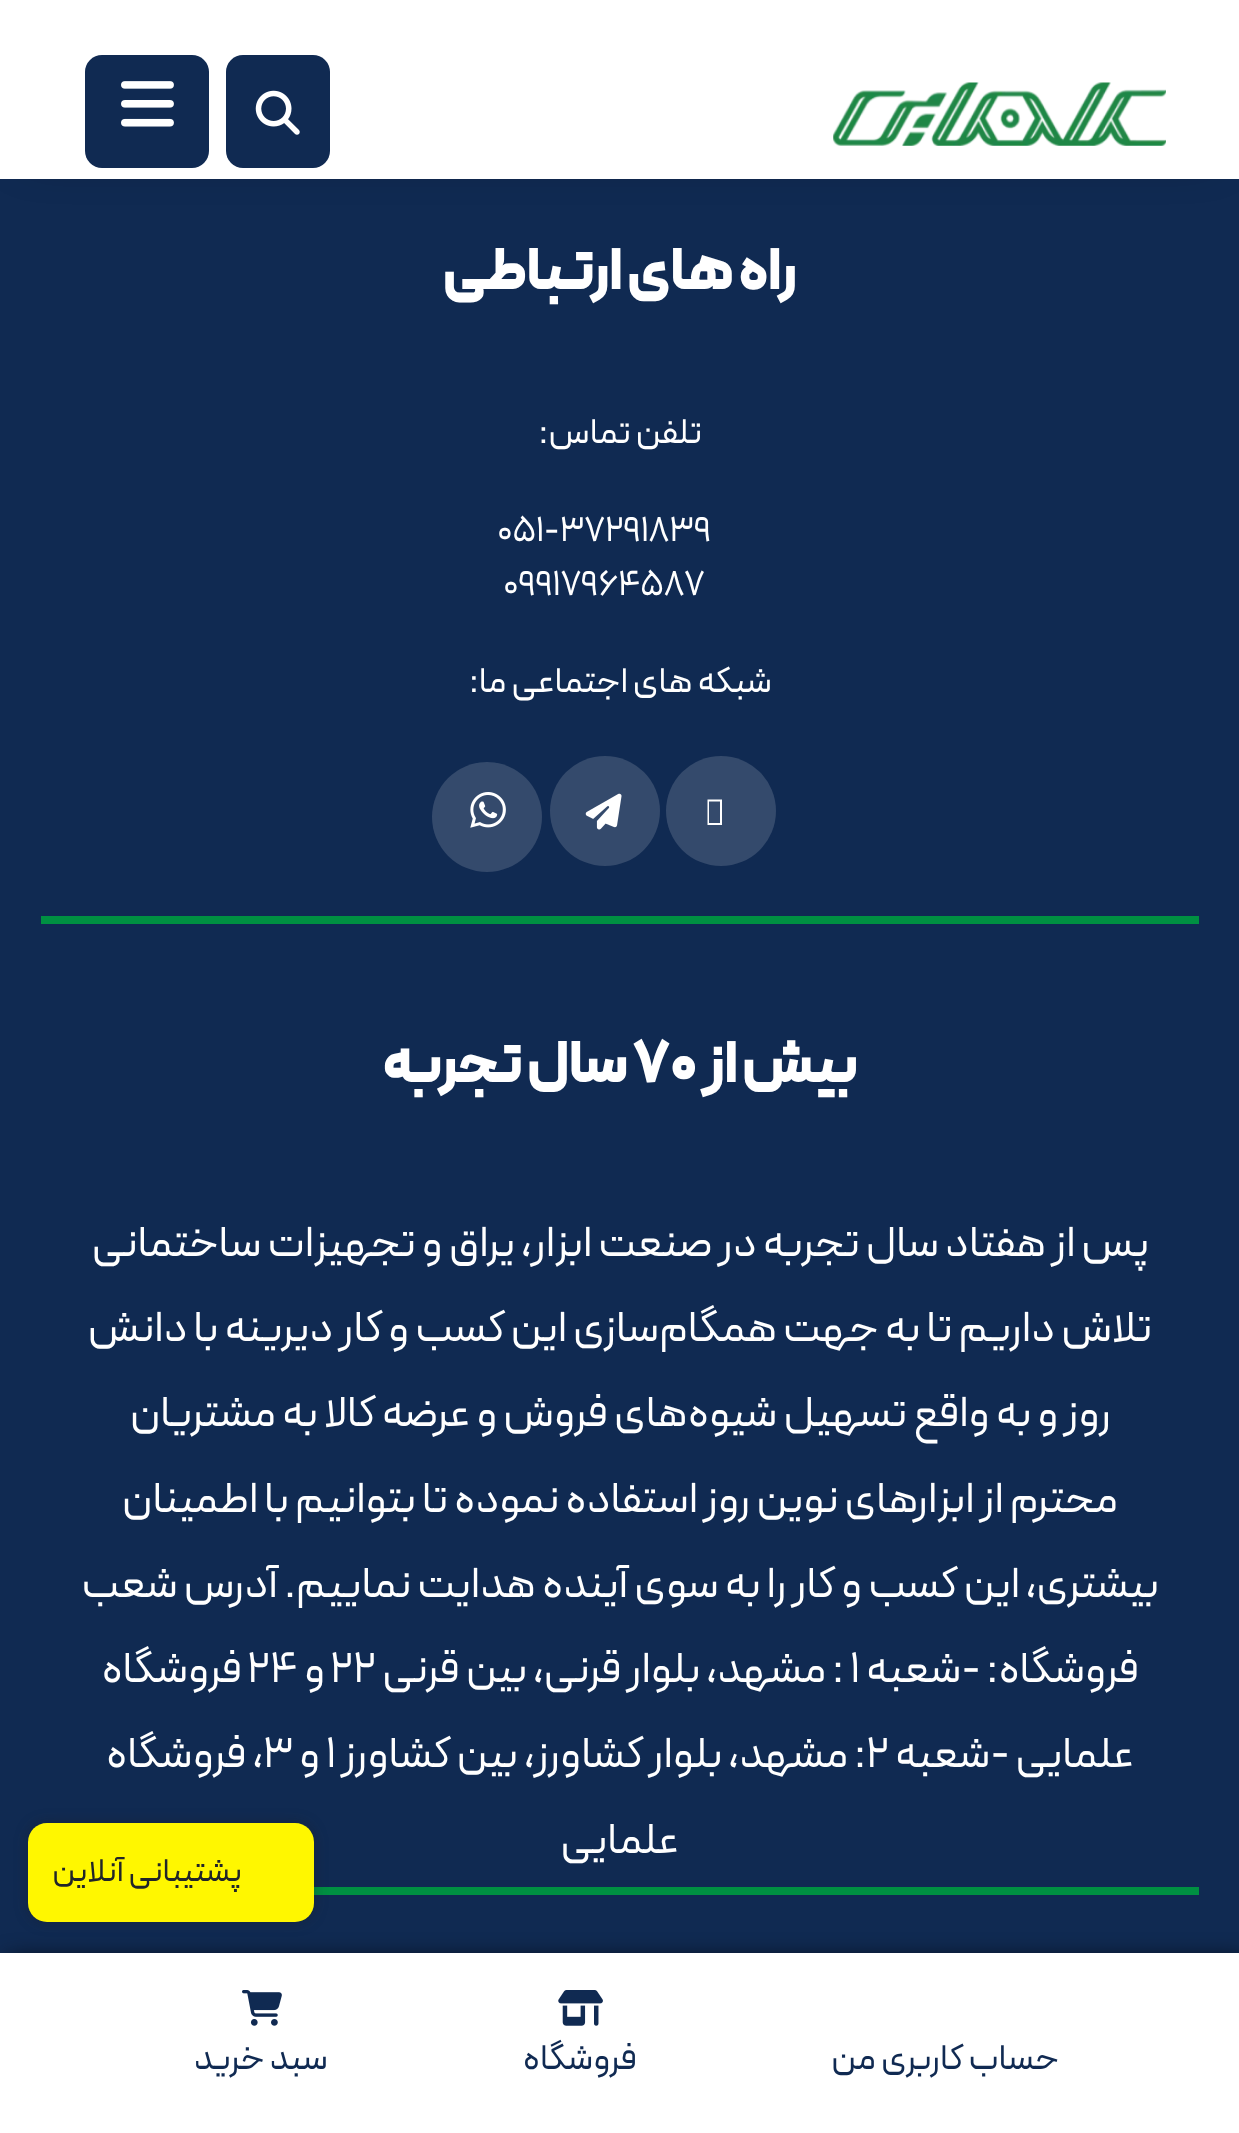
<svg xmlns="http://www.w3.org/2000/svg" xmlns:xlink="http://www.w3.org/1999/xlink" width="1239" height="2133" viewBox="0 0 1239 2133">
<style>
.cls-1{font:900 57.75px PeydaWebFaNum;direction:rtl;fill:#ffffff}
.cls-2{font:35.75px PeydaWebFaNum;direction:rtl;fill:#ffffff}
.cls-3{font:35.75px PeydaWebFaNum;fill:#ffffff}
.cls-4{font:900 57.75px PeydaWebFaNum;fill:#ffffff}
.cls-5{font:44px PeydaWebFaNum;direction:rtl;fill:#ffffff}
.cls-6{font:44px PeydaWebFaNum;fill:#ffffff}
.cls-7{font:35.75px PeydaWebFaNum;direction:rtl;fill:#102a52}
.cls-8{font:33px PeydaWebFaNum;direction:rtl;fill:#212529}
</style>
<rect width="100%" height="100%" fill="#102a52"/>
<rect fill="#000000" fill-opacity="0.48" filter="blur(23.5px)" x="28" y="28" width="1185" height="123"/>
<rect fill="#ffffff" x="0" y="0" width="1239" height="179"/>
<image xlink:href="image0.png" x="833" y="82" width="333" height="64"/>
<rect fill="#102a52" x="226" y="55" width="104" height="113" rx="17"/>
<image xlink:href="image1.png" x="255" y="90" width="45" height="45"/>
<rect fill="#102a52" x="85" y="55" width="124" height="113" rx="17"/>
<image xlink:href="image2.png" x="121" y="81" width="53" height="46"/>
<rect fill="#009042" x="41" y="916" width="1158" height="8"/>
<circle fill="#344a6c" cx="721" cy="811" r="55"/>
<path fill="#ffffff" d="M707.5 825V799.5H722V825ZM709 823H720V801.5H709Z"/>
<circle fill="#344a6c" cx="605" cy="811" r="55"/>
<image xlink:href="image3.png" x="585" y="793" width="37" height="37"/>
<circle fill="#344a6c" cx="487" cy="817" r="55"/>
<image xlink:href="image4.png" x="470" y="792" width="36" height="36"/>
<rect fill="#009042" x="314" y="1887" width="885" height="8"/>
<rect fill="#000000" filter="blur(12.5px)" x="8" y="1961" width="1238" height="165"/>
<rect fill="#ffffff" x="0" y="1953" width="1239" height="180"/>
<image xlink:href="image5.png" x="558" y="1990" width="45" height="36"/>
<image xlink:href="image6.png" x="242" y="1990" width="40" height="36"/>
<rect fill="#1e191e" fill-opacity="0.34" filter="blur(7px)" x="28" y="1823" width="286" height="99" rx="19"/>
<rect fill="#fff700" x="28" y="1823" width="286" height="99" rx="19"/>
<text class="cls-1" x="797" y="289">راه های ارتباطی</text>
<text class="cls-2" x="702" y="443">تلفن تماس:</text>
<text class="cls-3" x="497" y="541">051-37291839</text>
<text class="cls-3" x="503" y="595">09917964587</text>
<text class="cls-2" x="772" y="692">شبکه های اجتماعی ما:</text>
<text class="cls-1" x="858" y="1082">بیش از</text>
<text class="cls-4" x="633" y="1082">70</text>
<text class="cls-1" x="628" y="1082">سال تجربه</text>
<text class="cls-5" x="1149" y="1256">پس از هفتاد سال تجربه در صنعت ابزار، یراق و تجهیزات ساختمانی</text>
<text class="cls-5" x="1152" y="1341">تلاش داریم تا به جهت همگام‌سازی این کسب و کار دیرینه با دانش</text>
<text class="cls-5" x="1111" y="1426">روز و به واقع تسهیل شیوه‌های فروش و عرضه کالا به مشتریان</text>
<text class="cls-5" x="1118" y="1512">محترم از ابزارهای نوین روز استفاده نموده تا بتوانیم با اطمینان</text>
<text class="cls-5" x="1159" y="1597">بیشتری، این کسب و کار را به سوی آینده هدایت نماییم.</text>
<text class="cls-5" x="278" y="1597">آدرس شعب</text>
<text class="cls-5" x="1139" y="1682">فروشگاه:</text>
<text class="cls-5" x="981" y="1682">-شعبه</text>
<text class="cls-6" x="850" y="1682">1</text>
<text class="cls-5" x="844" y="1682">: مشهد، بلوار قرنی، بین قرنی</text>
<text class="cls-6" x="330" y="1682">22</text>
<text class="cls-5" x="325" y="1682">و</text>
<text class="cls-6" x="247" y="1682">24</text>
<text class="cls-5" x="242" y="1682">فروشگاه</text>
<text class="cls-5" x="1134" y="1767">علمایی</text>
<text class="cls-5" x="1010" y="1767">-شعبه</text>
<text class="cls-6" x="866" y="1767">2</text>
<text class="cls-5" x="866" y="1767">: مشهد، بلوار کشاورز، بین کشاورز</text>
<text class="cls-6" x="326" y="1767">1</text>
<text class="cls-5" x="320" y="1767">و</text>
<text class="cls-6" x="263" y="1767">3</text>
<text class="cls-5" x="263" y="1767">، فروشگاه</text>
<text class="cls-5" x="679" y="1853">علمایی</text>
<text class="cls-7" x="1059" y="2069">حساب کاربری من</text>
<text class="cls-7" x="637" y="2069">فروشگاه</text>
<text class="cls-7" x="328" y="2069">سبد خرید</text>
<text class="cls-8" x="242" y="1881">پشتیبانی آنلاین</text>
</svg>
